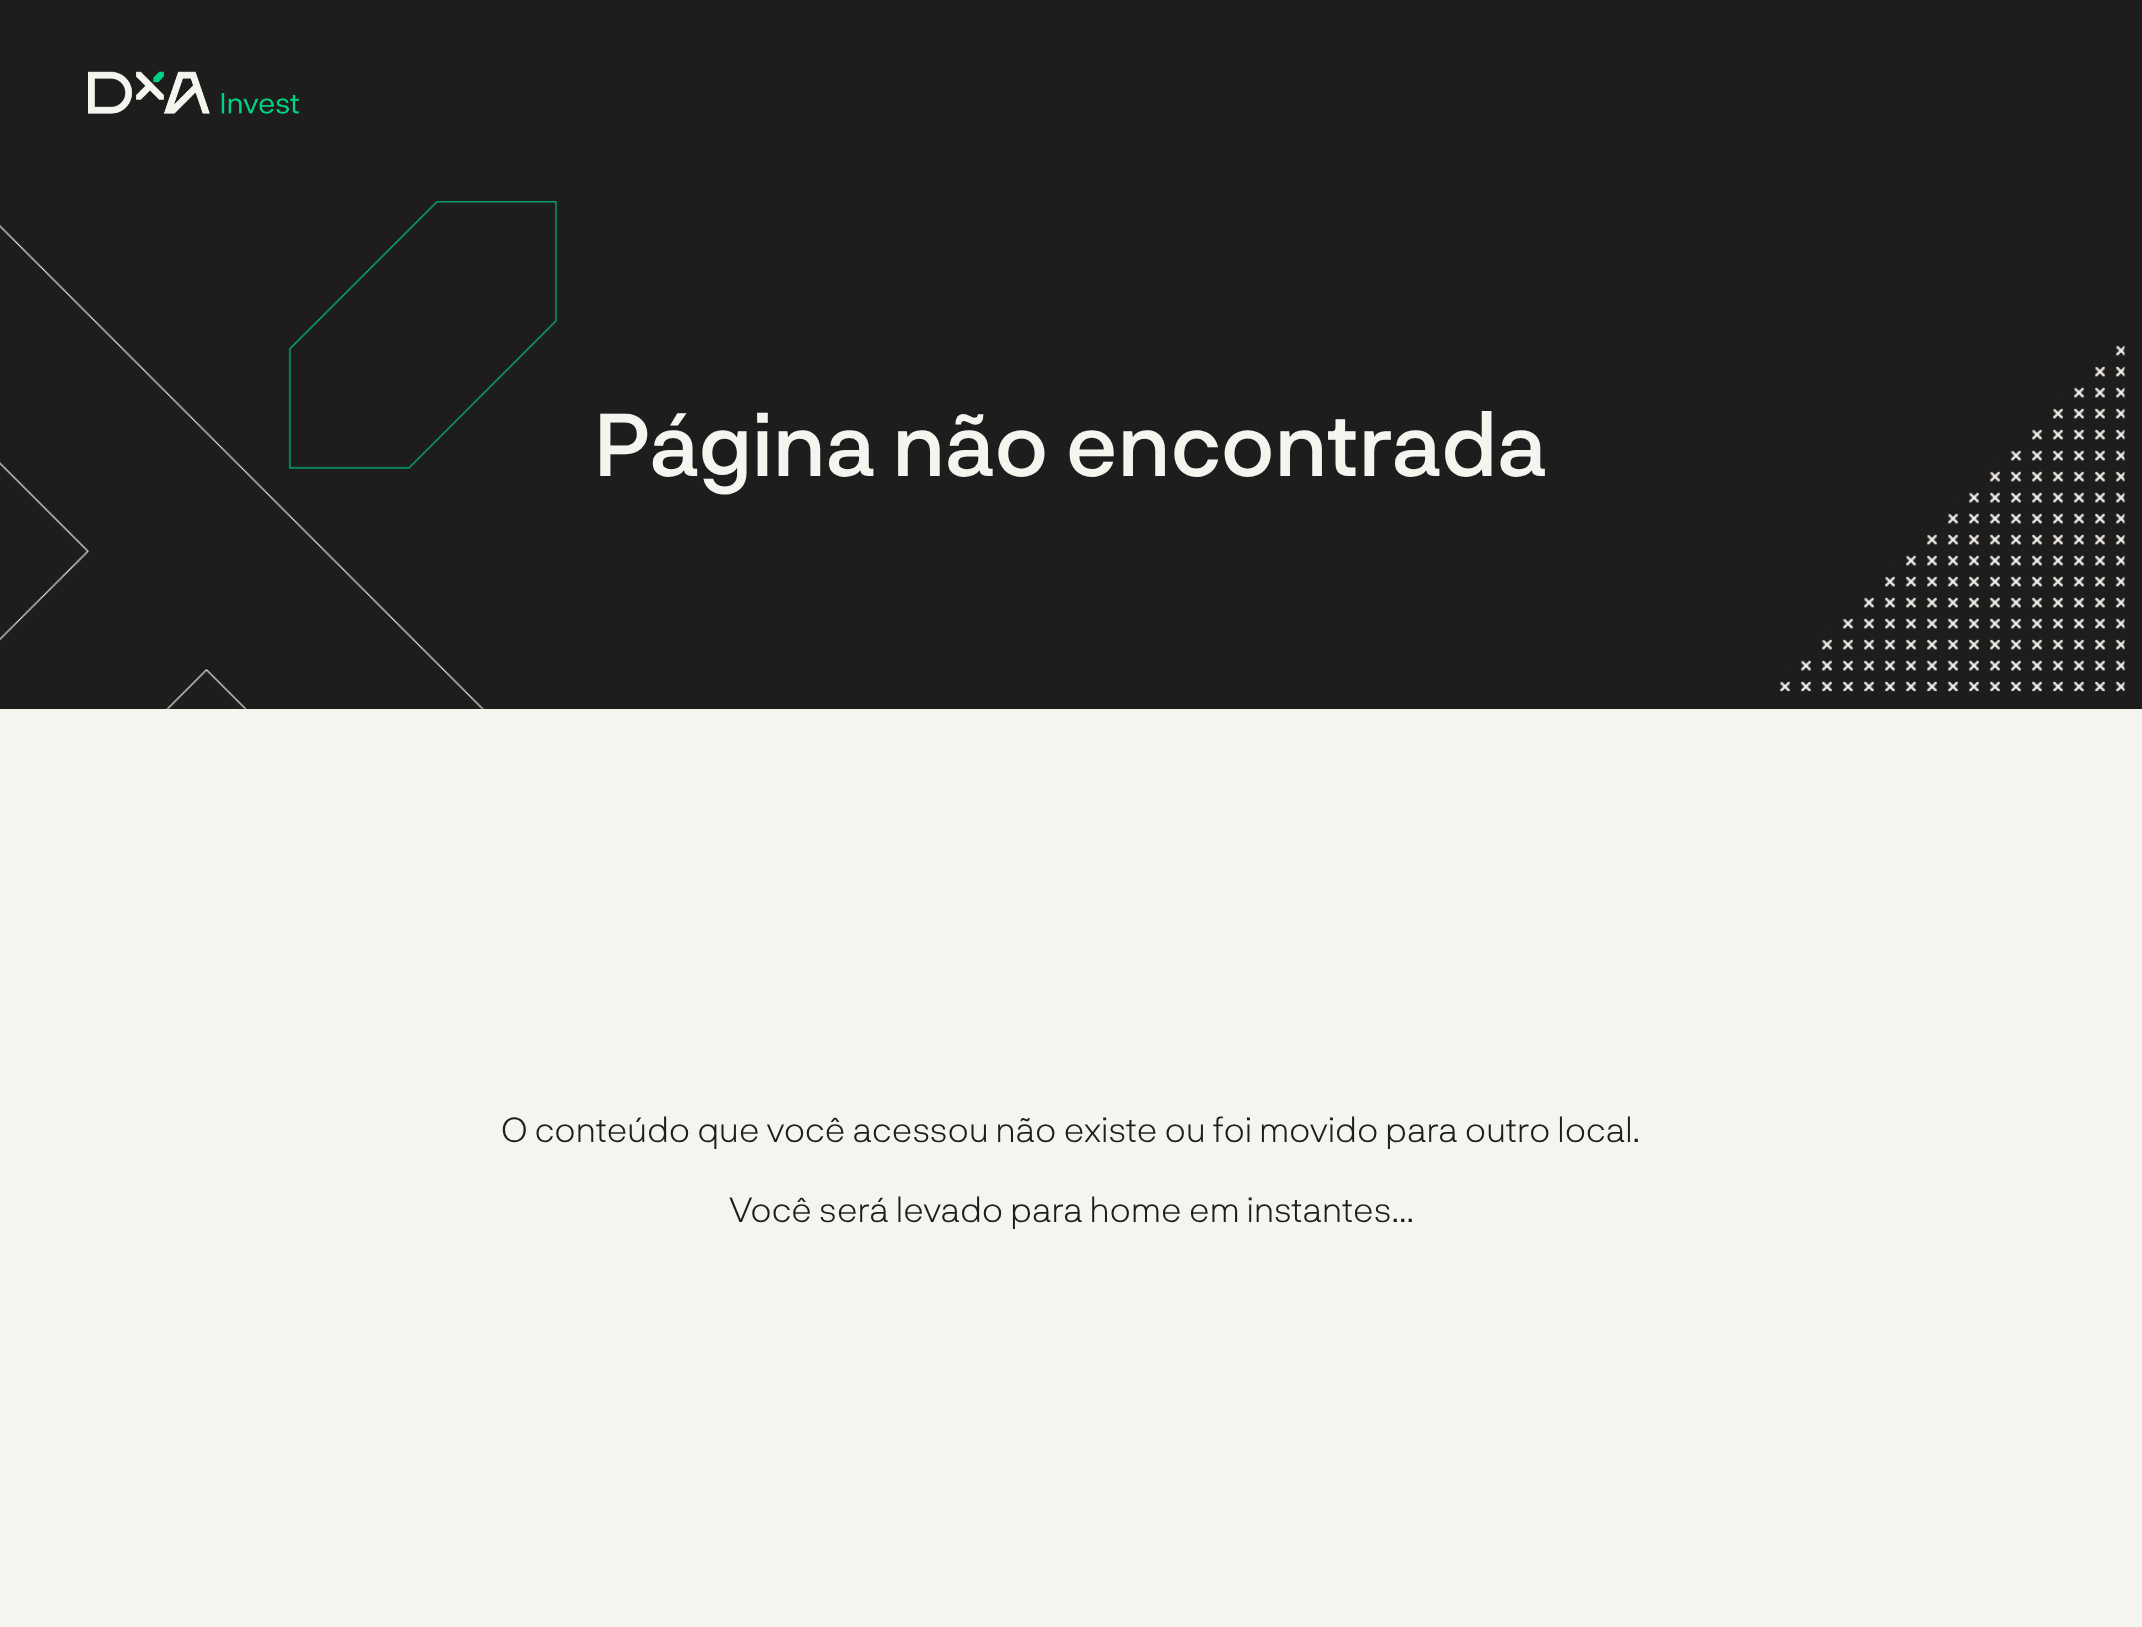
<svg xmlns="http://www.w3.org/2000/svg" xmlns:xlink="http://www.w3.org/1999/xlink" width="2142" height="1627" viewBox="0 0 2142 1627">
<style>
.cls-1{font:500 87.5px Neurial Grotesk;fill:#f5f5f0}
.cls-2{font:300 35px Neurial Grotesk;fill:#1e1d1d}
</style>
<rect width="100%" height="100%" fill="#f5f5f0"/>
<rect fill="#1e1d1d" x="0" y="0" width="2142" height="709"/>
<image xlink:href="image0.png" x="88" y="71" width="211" height="43"/>
<image xlink:href="image1.png" x="0" y="201" width="557" height="508"/>
<image xlink:href="image2.png" x="1779" y="345" width="346" height="347"/>
<text class="cls-1" x="594" y="476">Página não encontrada</text>
<text class="cls-2" x="501" y="1142">O conteúdo que você acessou não existe ou foi movido para outro local.</text>
<text class="cls-2" x="729" y="1222">Você será levado para home em instantes...</text>
</svg>
